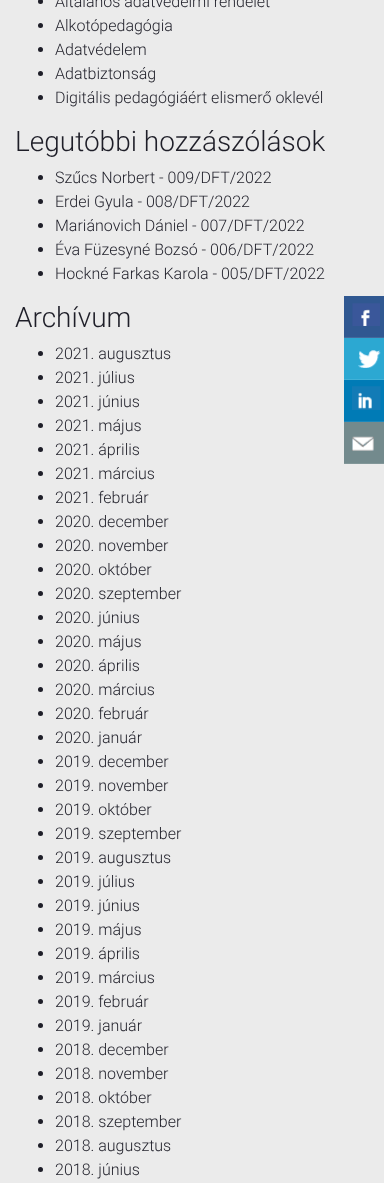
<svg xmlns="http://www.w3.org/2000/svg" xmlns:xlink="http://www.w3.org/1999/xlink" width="384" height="1183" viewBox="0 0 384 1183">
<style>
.cls-1{font:300 16px Roboto;fill:#1e1e28}
.cls-2{font:300 28px Roboto;fill:#1e1e28}
</style>
<rect width="100%" height="100%" fill="#ebebeb"/>
<circle fill="#1e1e28" cx="40.5" cy="1.5" r="2.5"/>
<circle fill="#1e1e28" cx="40.5" cy="25.5" r="2.5"/>
<circle fill="#1e1e28" cx="40.5" cy="49.5" r="2.5"/>
<circle fill="#1e1e28" cx="40.5" cy="73.5" r="2.5"/>
<circle fill="#1e1e28" cx="40.5" cy="97.5" r="2.5"/>
<circle fill="#1e1e28" cx="40.5" cy="177.5" r="2.5"/>
<circle fill="#1e1e28" cx="40.5" cy="201.5" r="2.5"/>
<circle fill="#1e1e28" cx="40.5" cy="225.5" r="2.5"/>
<circle fill="#1e1e28" cx="40.5" cy="249.5" r="2.5"/>
<circle fill="#1e1e28" cx="40.5" cy="273.5" r="2.5"/>
<circle fill="#1e1e28" cx="40.5" cy="353.5" r="2.5"/>
<circle fill="#1e1e28" cx="40.5" cy="377.5" r="2.5"/>
<circle fill="#1e1e28" cx="40.5" cy="401.5" r="2.5"/>
<circle fill="#1e1e28" cx="40.5" cy="425.5" r="2.5"/>
<circle fill="#1e1e28" cx="40.5" cy="449.5" r="2.5"/>
<circle fill="#1e1e28" cx="40.5" cy="473.5" r="2.5"/>
<circle fill="#1e1e28" cx="40.5" cy="497.5" r="2.5"/>
<circle fill="#1e1e28" cx="40.5" cy="521.5" r="2.5"/>
<circle fill="#1e1e28" cx="40.5" cy="545.5" r="2.5"/>
<circle fill="#1e1e28" cx="40.5" cy="569.5" r="2.5"/>
<circle fill="#1e1e28" cx="40.5" cy="593.5" r="2.5"/>
<circle fill="#1e1e28" cx="40.5" cy="617.5" r="2.5"/>
<circle fill="#1e1e28" cx="40.5" cy="641.5" r="2.5"/>
<circle fill="#1e1e28" cx="40.5" cy="665.5" r="2.5"/>
<circle fill="#1e1e28" cx="40.5" cy="689.5" r="2.5"/>
<circle fill="#1e1e28" cx="40.5" cy="713.5" r="2.5"/>
<circle fill="#1e1e28" cx="40.5" cy="737.5" r="2.5"/>
<circle fill="#1e1e28" cx="40.5" cy="761.5" r="2.5"/>
<circle fill="#1e1e28" cx="40.5" cy="785.5" r="2.5"/>
<circle fill="#1e1e28" cx="40.5" cy="809.5" r="2.5"/>
<circle fill="#1e1e28" cx="40.5" cy="833.5" r="2.5"/>
<circle fill="#1e1e28" cx="40.5" cy="857.5" r="2.5"/>
<circle fill="#1e1e28" cx="40.5" cy="881.5" r="2.5"/>
<circle fill="#1e1e28" cx="40.5" cy="905.5" r="2.5"/>
<circle fill="#1e1e28" cx="40.5" cy="929.5" r="2.5"/>
<circle fill="#1e1e28" cx="40.5" cy="953.5" r="2.5"/>
<circle fill="#1e1e28" cx="40.5" cy="977.5" r="2.5"/>
<circle fill="#1e1e28" cx="40.5" cy="1001.5" r="2.5"/>
<circle fill="#1e1e28" cx="40.5" cy="1025.5" r="2.5"/>
<circle fill="#1e1e28" cx="40.5" cy="1049.5" r="2.5"/>
<circle fill="#1e1e28" cx="40.5" cy="1073.5" r="2.5"/>
<circle fill="#1e1e28" cx="40.5" cy="1097.5" r="2.5"/>
<circle fill="#1e1e28" cx="40.5" cy="1121.5" r="2.5"/>
<circle fill="#1e1e28" cx="40.5" cy="1145.5" r="2.5"/>
<circle fill="#1e1e28" cx="40.5" cy="1169.5" r="2.5"/>
<rect fill="#305891" x="344" y="296" width="40" height="41"/>
<rect fill="#45699c" x="344" y="337" width="40" height="1"/>
<image xlink:href="image0.png" x="352" y="303" width="28" height="23"/>
<rect fill="#2ca8d2" x="344" y="338" width="40" height="41"/>
<rect fill="#41b1d7" x="344" y="379" width="40" height="1"/>
<image xlink:href="image1.png" x="358" y="350" width="23" height="18"/>
<rect fill="#007bb6" x="344" y="380" width="40" height="41"/>
<rect fill="#1a88bd" x="344" y="421" width="40" height="1"/>
<image xlink:href="image2.png" x="352" y="386" width="29" height="24"/>
<rect fill="#738a8d" x="344" y="422" width="40" height="41"/>
<rect fill="#819698" x="344" y="463" width="40" height="1"/>
<image xlink:href="image3.png" x="352" y="436" width="22" height="15"/>
<text class="cls-1"><tspan x="55" y="7">Általános adatvédelmi rendelet</tspan><tspan x="55" y="31">Alkotópedagógia</tspan><tspan x="55" y="55">Adatvédelem</tspan><tspan x="55" y="79">Adatbiztonság</tspan><tspan x="55" y="103">Digitális pedagógiáért elismerő oklevél</tspan></text>
<text class="cls-2" x="15" y="151">Legutóbbi hozzászólások</text>
<text class="cls-1"><tspan x="55" y="183">Szűcs Norbert - 009/DFT/2022</tspan><tspan x="55" y="207">Erdei Gyula - 008/DFT/2022</tspan><tspan x="55" y="231">Mariánovich Dániel - 007/DFT/2022</tspan><tspan x="55" y="255">Éva Füzesyné Bozsó - 006/DFT/2022</tspan><tspan x="55" y="279">Hockné Farkas Karola - 005/DFT/2022</tspan></text>
<text class="cls-2" x="15" y="327">Archívum</text>
<text class="cls-1"><tspan x="55" y="359">2021. augusztus</tspan><tspan x="55" y="383">2021. július</tspan><tspan x="55" y="407">2021. június</tspan><tspan x="55" y="431">2021. május</tspan><tspan x="55" y="455">2021. április</tspan><tspan x="55" y="479">2021. március</tspan><tspan x="55" y="503">2021. február</tspan><tspan x="55" y="527">2020. december</tspan><tspan x="55" y="551">2020. november</tspan><tspan x="55" y="575">2020. október</tspan><tspan x="55" y="599">2020. szeptember</tspan><tspan x="55" y="623">2020. június</tspan><tspan x="55" y="647">2020. május</tspan><tspan x="55" y="671">2020. április</tspan><tspan x="55" y="695">2020. március</tspan><tspan x="55" y="719">2020. február</tspan><tspan x="55" y="743">2020. január</tspan><tspan x="55" y="767">2019. december</tspan><tspan x="55" y="791">2019. november</tspan><tspan x="55" y="815">2019. október</tspan><tspan x="55" y="839">2019. szeptember</tspan><tspan x="55" y="863">2019. augusztus</tspan><tspan x="55" y="887">2019. július</tspan><tspan x="55" y="911">2019. június</tspan><tspan x="55" y="935">2019. május</tspan><tspan x="55" y="959">2019. április</tspan><tspan x="55" y="983">2019. március</tspan><tspan x="55" y="1007">2019. február</tspan><tspan x="55" y="1031">2019. január</tspan><tspan x="55" y="1055">2018. december</tspan><tspan x="55" y="1079">2018. november</tspan><tspan x="55" y="1103">2018. október</tspan><tspan x="55" y="1127">2018. szeptember</tspan><tspan x="55" y="1151">2018. augusztus</tspan><tspan x="55" y="1175">2018. június</tspan></text>
</svg>
